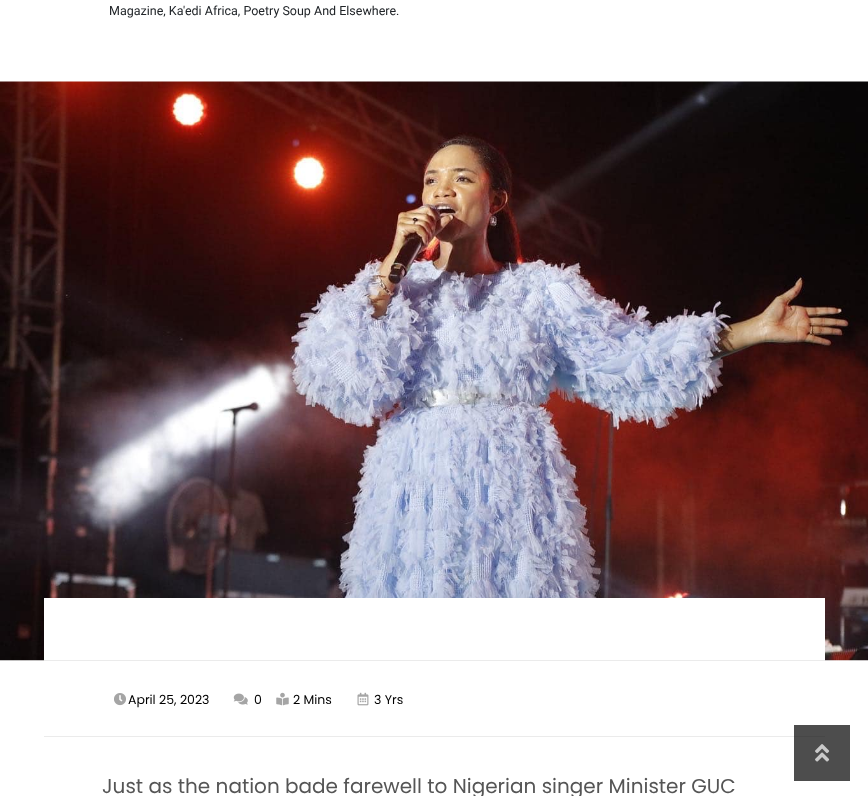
<svg xmlns="http://www.w3.org/2000/svg" xmlns:xlink="http://www.w3.org/1999/xlink" width="868" height="796" viewBox="0 0 868 796">
<style>
.cls-1{font:12.5px Roboto;fill:#212529}
.cls-2{font:12.5px Poppins;fill:#000000}
.cls-3{font:20px Poppins;fill:#555555}
</style>
<rect width="100%" height="100%" fill="#ffffff"/>
<rect fill="#4d4d4d" x="794" y="725" width="56" height="56"/>
<image xlink:href="image0.png" x="0" y="81" width="868" height="580"/>
<rect fill="#ffffff" x="44" y="598" width="781" height="63"/>
<rect fill="#ebebeb" x="44" y="660" width="781" height="1"/>
<rect fill="#ebebeb" x="44" y="736" width="750" height="1"/>
<rect fill="#474747" x="794" y="736" width="31" height="1"/>
<image xlink:href="image1.png" x="114" y="693" width="12" height="13"/>
<image xlink:href="image2.png" x="233" y="693" width="15" height="12"/>
<image xlink:href="image3.png" x="276" y="692" width="13" height="14"/>
<image xlink:href="image4.png" x="357" y="692" width="12" height="14"/>
<image xlink:href="image5.png" x="815" y="744" width="15" height="18"/>
<text class="cls-1" x="109" y="15">Magazine, Ka'edi Africa, Poetry Soup And Elsewhere.</text>
<text class="cls-2" x="128" y="704">April 25, 2023</text>
<text class="cls-2" x="254" y="704">0</text>
<text class="cls-2" x="293" y="704">2 Mins</text>
<text class="cls-2" x="374" y="704">3 Yrs</text>
<text class="cls-3" x="102" y="793">Just as the nation bade farewell to Nigerian singer Minister GUC</text>
</svg>
